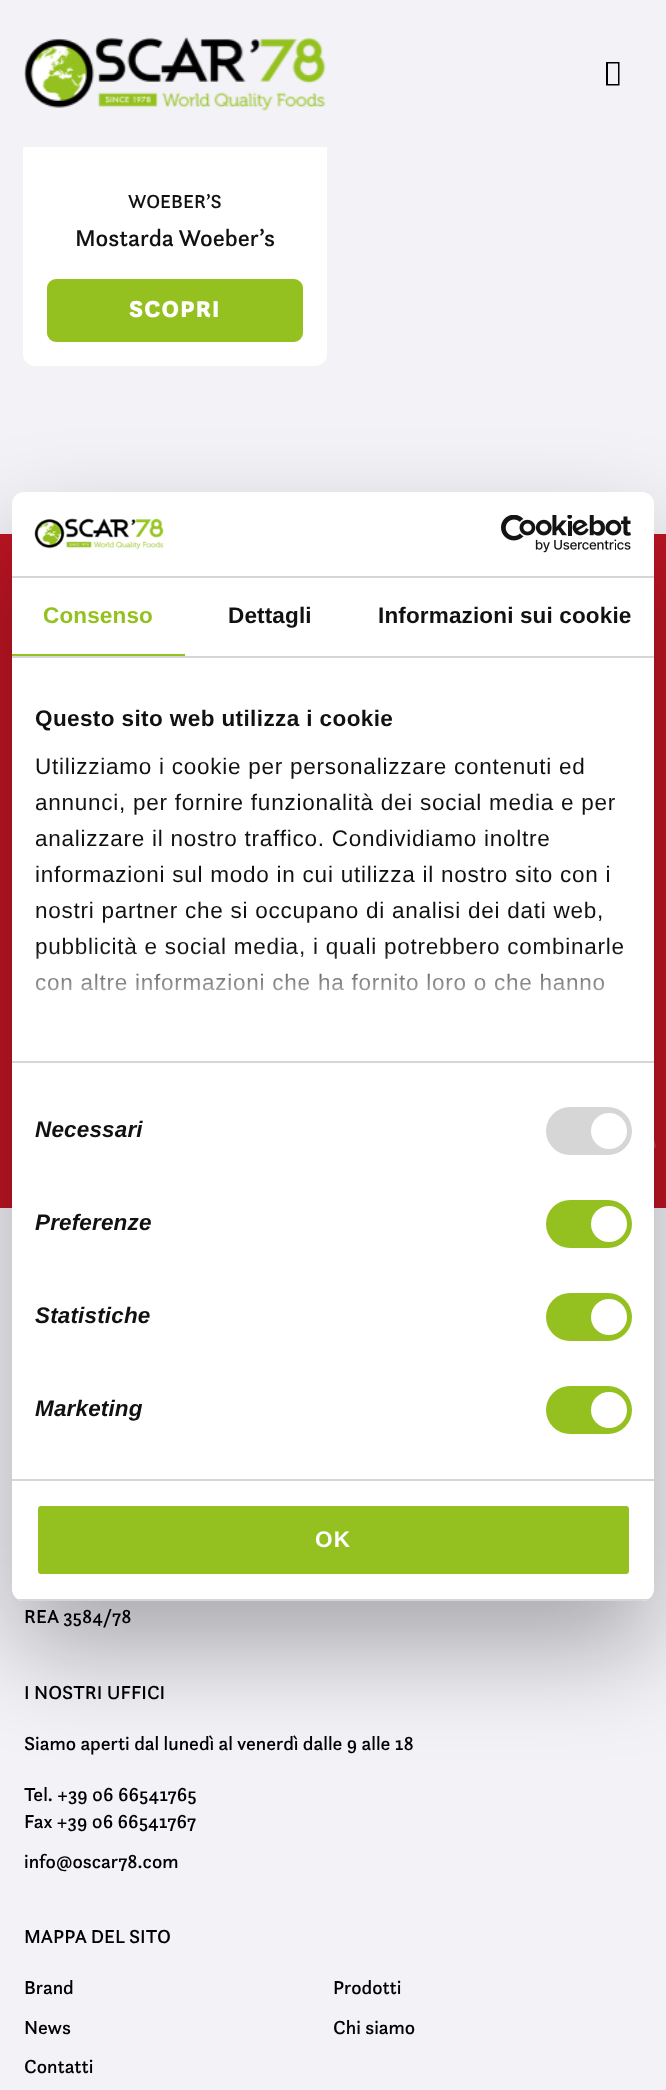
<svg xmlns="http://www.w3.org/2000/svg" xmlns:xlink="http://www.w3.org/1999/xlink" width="666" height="2090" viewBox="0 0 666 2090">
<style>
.cls-1{font:500 19.5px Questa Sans;fill:#111111}
.cls-2{font:500 24px Questa Sans;fill:#111111}
.cls-3{font:900 24px Questa Sans;letter-spacing:1.25px;fill:#ffffff}
.cls-4{font:bold 22.5px Liberation Sans;letter-spacing:0.15px;fill:#94c11f}
.cls-5{font:bold 22.5px Liberation Sans;letter-spacing:0.15px;fill:#111111}
.cls-6{font:bold 22.5px Liberation Sans;letter-spacing:0.4px;fill:#111111}
.cls-7{font:22.5px Liberation Sans;letter-spacing:0.75px;fill:#111111}
.cls-8{font:italic bold 22.5px Liberation Sans;letter-spacing:0.15px;fill:#111111}
.cls-9{font:bold 22.5px Liberation Sans;letter-spacing:1.25px;fill:#ffffff}
.cls-10{font:500 19.5px Questa Sans;fill:#000000}
</style>
<defs>
<clipPath id="clip1"><rect x="12" y="492" width="642" height="1109" rx="12"/></clipPath>
<linearGradient id="g1" gradientUnits="userSpaceOnUse" x1="323" y1="1060" x2="323" y2="948"><stop offset="0" stop-color="#ffffff"/><stop offset="0.5" stop-color="#ffffff" stop-opacity="0.8"/><stop offset="1" stop-color="#ffffff" stop-opacity="0"/></linearGradient>
</defs>
<rect width="100%" height="100%" fill="#f2f2f7"/>
<rect fill="#ffffff" x="23" y="-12" width="304" height="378" rx="12"/>
<rect fill="#f2f2f7" x="23" y="0" width="304" height="147"/>
<image xlink:href="image0.png" x="24" y="36" width="302" height="75"/>
<path fill="#000000" d="M606 85.5V62H619.5V85.5ZM608 84H618V63.5H608Z"/>
<rect fill="#94c11f" stroke="#94c11f" stroke-width="2" x="48" y="280" width="254" height="61" rx="8"/>
<rect fill="#be1522" x="0" y="534" width="666" height="674"/>
<image xlink:href="image1.png" x="654" y="1080" width="2" height="128"/>
<rect fill="#000000" fill-opacity="0.3" filter="blur(51px)" x="12" y="540" width="642" height="1109" rx="12"/>
<rect fill="#ffffff" x="12" y="492" width="642" height="1109" rx="12"/>
<rect fill="#d6d6d6" x="12" y="576" width="642" height="2"/>
<image xlink:href="image2.png" x="34" y="518" width="130" height="32"/>
<image xlink:href="image3.png" x="501" y="515" width="130" height="38"/>
<rect fill="#d6d6d6" x="12" y="656" width="642" height="2"/>
<rect fill="#94c11f" x="12" y="654" width="173" height="2"/>
<rect fill="#d6d6d6" x="12" y="1061" width="642" height="2"/>
<rect fill="#d6d6d6" x="12" y="1479" width="642" height="2"/>
<rect fill="#d6d6d6" x="546" y="1107" width="86" height="48" rx="24"/>
<circle fill="#ffffff" cx="609" cy="1131" r="18"/>
<rect fill="#94c11f" x="546" y="1200" width="86" height="48" rx="24"/>
<circle fill="#ffffff" cx="609" cy="1224" r="18"/>
<rect fill="#94c11f" x="546" y="1293" width="86" height="48" rx="24"/>
<circle fill="#ffffff" cx="609" cy="1317" r="18"/>
<rect fill="#94c11f" x="546" y="1386" width="86" height="48" rx="24"/>
<circle fill="#ffffff" cx="609" cy="1410" r="18"/>
<g clip-path="url(#clip1)">
<rect fill="#d6d6d6" x="12" y="1599" width="642" height="2"/>
</g>
<rect fill="#94c11f" stroke="#ffffff" stroke-width="3" x="36.5" y="1504.5" width="594" height="71" rx="4.5"/>
<text class="cls-1" x="128" y="208">WOEBER’S</text>
<text class="cls-2" x="75" y="246">Mostarda Woeber’s</text>
<text class="cls-3" x="129" y="317">SCOPRI</text>
<text class="cls-4" x="43" y="623">Consenso</text>
<text class="cls-5" x="228" y="623">Dettagli</text>
<text class="cls-5" x="378" y="623">Informazioni sui cookie</text>
<text class="cls-6" x="35" y="726">Questo sito web utilizza i cookie</text>
<text class="cls-7"><tspan x="35" y="774">Utilizziamo i cookie per personalizzare contenuti ed</tspan><tspan x="35" y="810">annunci, per fornire funzionalità dei social media e per</tspan><tspan x="35" y="846">analizzare il nostro traffico. Condividiamo inoltre</tspan><tspan x="35" y="882">informazioni sul modo in cui utilizza il nostro sito con i</tspan><tspan x="35" y="918">nostri partner che si occupano di analisi dei dati web,</tspan><tspan x="35" y="954">pubblicità e social media, i quali potrebbero combinarle</tspan><tspan x="35" y="990">con altre informazioni che ha fornito loro o che hanno</tspan></text>
<rect fill="url(#g1)" x="35" y="950" width="587" height="41"/>
<text class="cls-8" x="35" y="1137">Necessari</text>
<text class="cls-8" x="35" y="1230">Preferenze</text>
<text class="cls-8" x="35" y="1323">Statistiche</text>
<text class="cls-8" x="35" y="1416">Marketing</text>
<text class="cls-9" x="315" y="1547">OK</text>
<text class="cls-10" x="24" y="1623">REA 3584/78</text>
<text class="cls-10" x="24" y="1699">I NOSTRI UFFICI</text>
<text class="cls-10" x="24" y="1750">Siamo aperti dal lunedì al venerdì dalle 9 alle 18</text>
<text class="cls-10"><tspan x="24" y="1801">Tel. +39 06 66541765</tspan><tspan x="24" y="1828">Fax +39 06 66541767</tspan></text>
<text class="cls-10" x="24" y="1868">info@oscar78.com</text>
<text class="cls-10" x="24" y="1943">MAPPA DEL SITO</text>
<text class="cls-10" x="24" y="1994">Brand</text>
<text class="cls-10" x="333" y="1994">Prodotti</text>
<text class="cls-10" x="24" y="2034">News</text>
<text class="cls-10" x="333" y="2034">Chi siamo</text>
<text class="cls-10" x="24" y="2073">Contatti</text>
</svg>
